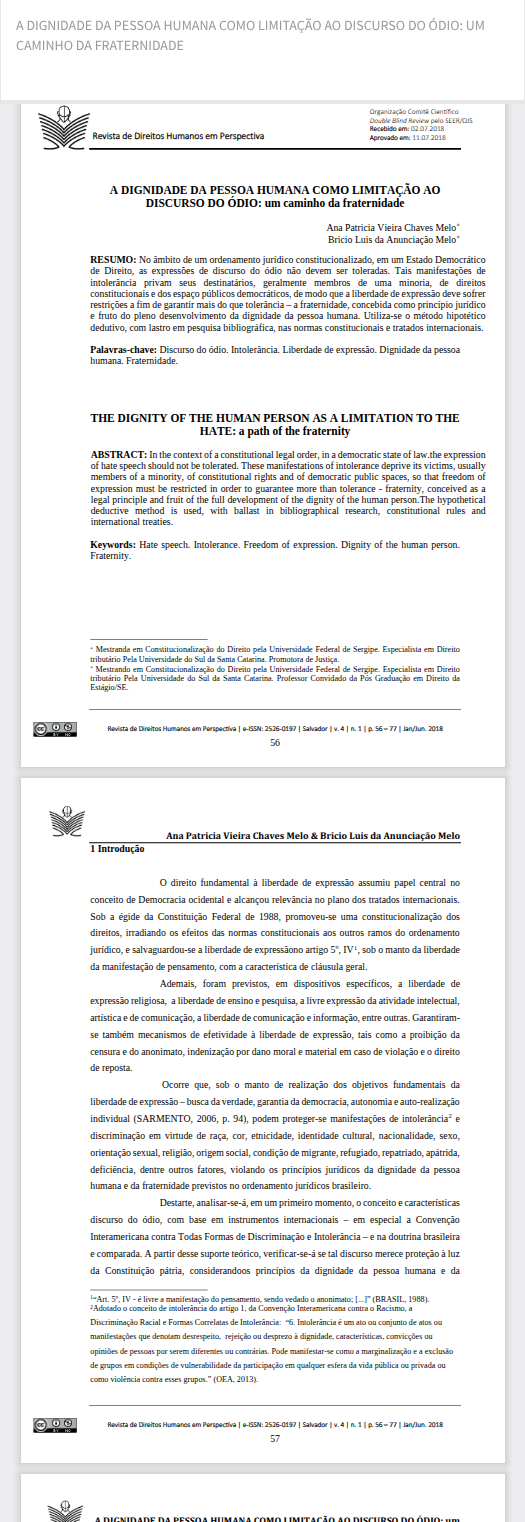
<svg xmlns="http://www.w3.org/2000/svg" xmlns:xlink="http://www.w3.org/1999/xlink" width="525" height="1522" viewBox="0 0 525 1522">
<style>
.cls-1{font:14px Source Sans Pro;fill:#999999}
</style>
<rect width="100%" height="100%" fill="#ffffff"/>
<rect fill="#e7e7e7" x="524" y="0" width="1" height="104"/>
<rect fill="#e7e7e7" x="0" y="100" width="525" height="4"/>
<rect fill="#e7e7e7" x="0" y="0" width="1" height="104"/>
<image xlink:href="image0.png" x="0" y="104" width="525" height="1418"/>
<text class="cls-1"><tspan x="16" y="30">A DIGNIDADE DA PESSOA HUMANA COMO LIMITAÇÃO AO DISCURSO DO ÓDIO: UM</tspan><tspan x="16" y="50">CAMINHO DA FRATERNIDADE</tspan></text>
</svg>
